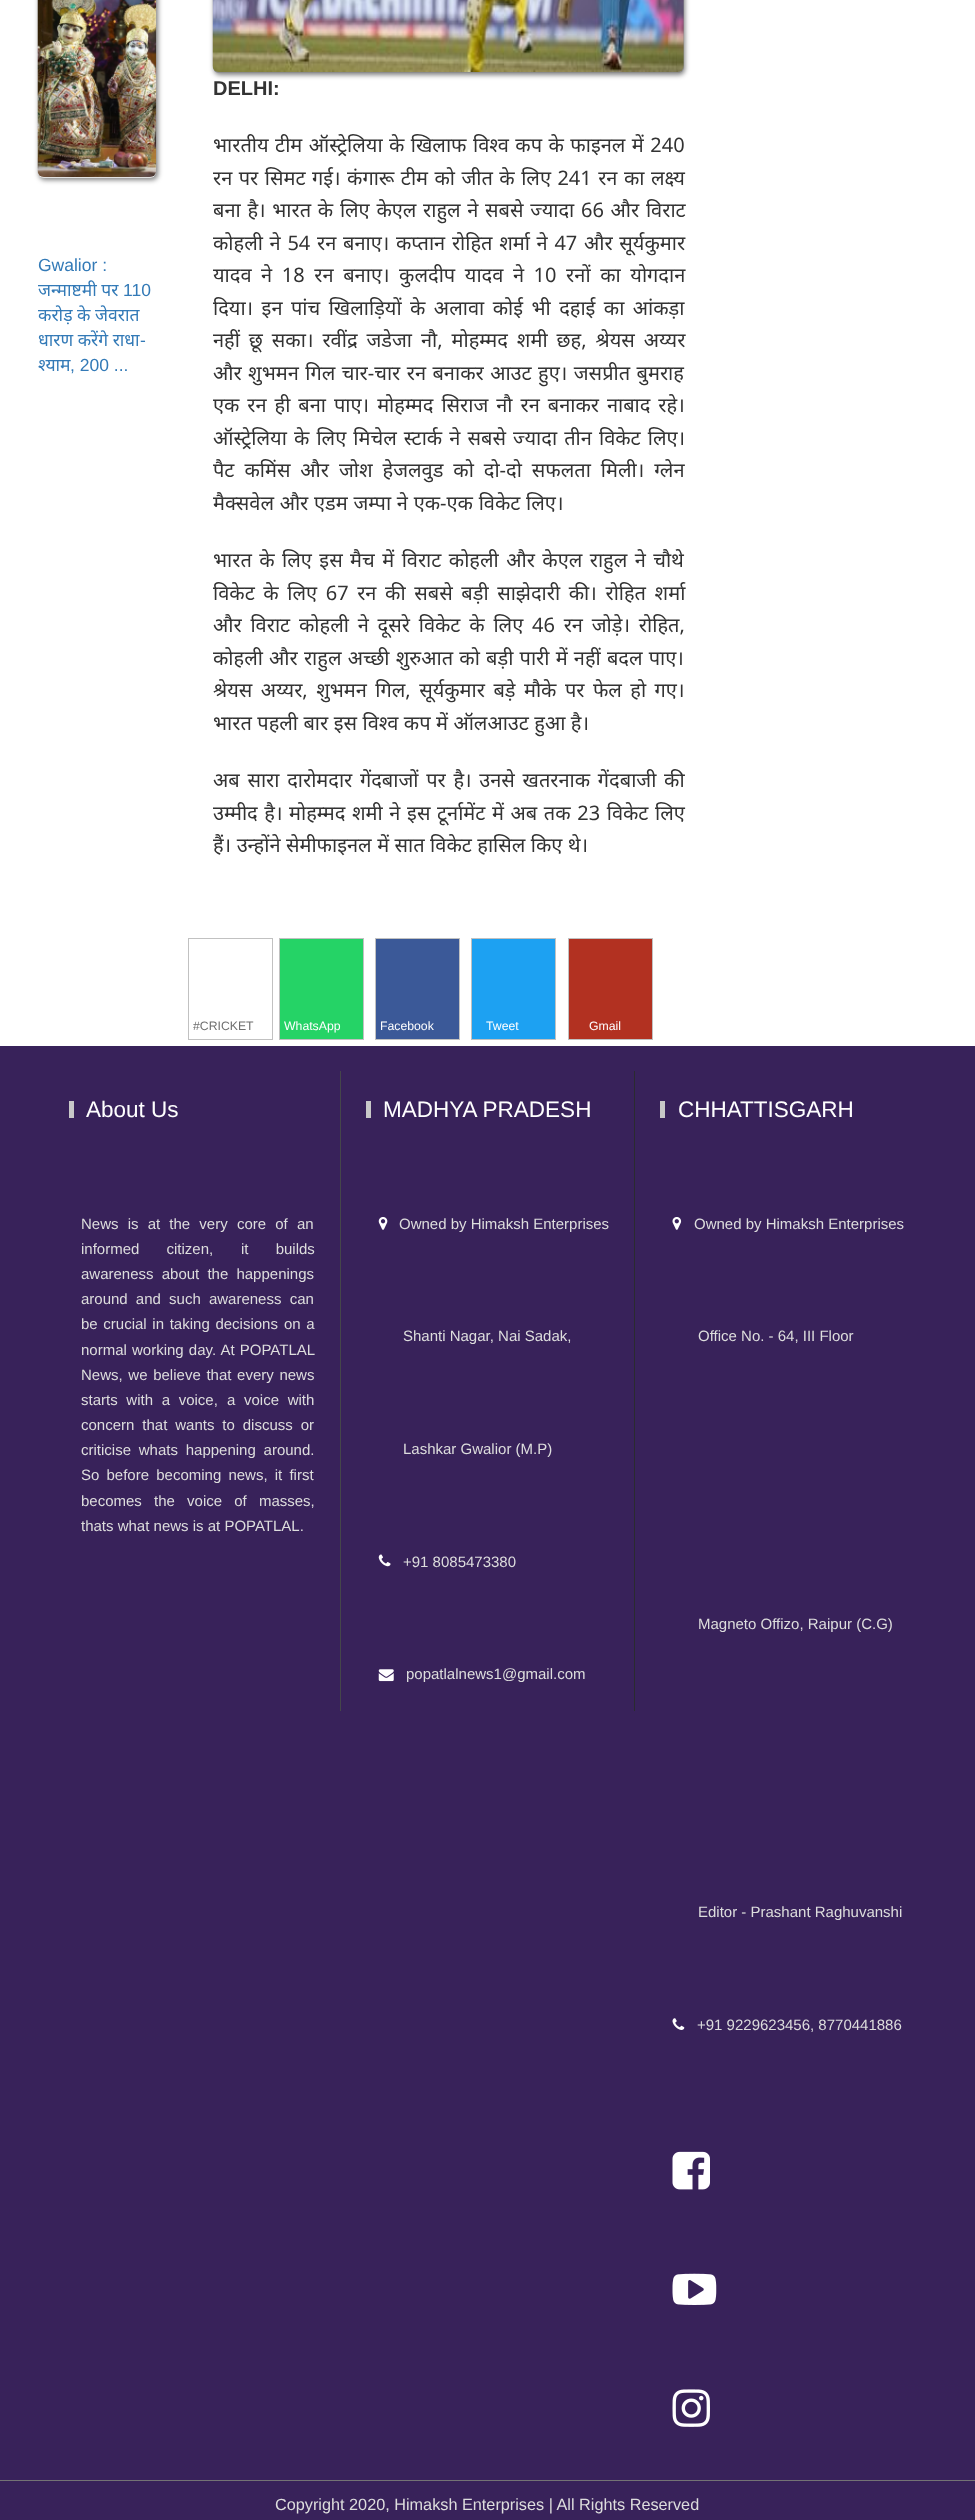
<svg xmlns="http://www.w3.org/2000/svg" xmlns:xlink="http://www.w3.org/1999/xlink" width="975" height="2520" viewBox="0 0 975 2520">
<style>
.cls-1{font:17.5px Liberation Sans;fill:#337ab7}
.cls-2{font:17.5px Noto Sans;fill:#337ab7}
.cls-3{font:bold 20px Liberation Sans;fill:#333333}
.cls-4{font:20px Noto Sans;fill:#333333}
.cls-5{font:12.25px Liberation Sans;fill:#6f6f6f}
.cls-6{font:12.25px Liberation Sans;fill:#ffffff}
.cls-7{font:22.5px Liberation Sans;fill:#ffffff}
.cls-8{font:15px Liberation Sans;fill:#dddddd}
.cls-9{font:16.25px Liberation Sans;fill:#dddddd}
</style>
<rect width="100%" height="100%" fill="#ffffff"/>
<rect fill="#000000" fill-opacity="0.5" filter="blur(2.5px)" x="39" y="-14" width="119" height="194" rx="6"/>
<rect fill="#ffffff" fill-opacity="0.74" x="38" y="-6" width="118" height="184" rx="6"/>
<image xlink:href="image0.png" x="37" y="0" width="120" height="177"/>
<rect fill="#000000" fill-opacity="0.5" filter="blur(2.5px)" x="214" y="-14" width="471" height="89" rx="6"/>
<rect fill="#8d8d8d" x="213" y="-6" width="471" height="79" rx="6"/>
<image xlink:href="image1.png" x="212" y="0" width="472" height="72"/>
<rect fill="none" stroke="#c1c1c1" x="188.5" y="938.5" width="84" height="101"/>
<rect fill="#25d366" stroke="#c1c1c1" x="279.5" y="938.5" width="84" height="101"/>
<rect fill="#3b5998" stroke="#c1c1c1" x="375.5" y="938.5" width="84" height="101"/>
<rect fill="#1da1f2" stroke="#c1c1c1" x="471.5" y="938.5" width="84" height="101"/>
<rect fill="#b23121" stroke="#c1c1c1" x="568.5" y="938.5" width="84" height="101"/>
<rect fill="#38225a" x="0" y="1046" width="975" height="1474"/>
<rect fill="#c8c8c8" x="69" y="1101" width="5" height="17"/>
<rect fill="#2a2b2f" x="634" y="1071" width="1" height="640"/>
<rect fill="#45464a" x="340" y="1071" width="1" height="640"/>
<rect fill="#c8c8c8" x="366" y="1101" width="5" height="17"/>
<image xlink:href="image2.png" x="378" y="1217" width="10" height="13"/>
<image xlink:href="image3.png" x="378" y="1554" width="13" height="13"/>
<image xlink:href="image4.png" x="378" y="1669" width="16" height="13"/>
<rect fill="#c8c8c8" x="660" y="1101" width="5" height="17"/>
<image xlink:href="image5.png" x="672" y="1217" width="10" height="13"/>
<image xlink:href="image6.png" x="672" y="2018" width="13" height="12"/>
<image xlink:href="image7.png" x="672" y="2151" width="38" height="39"/>
<image xlink:href="image8.png" x="672" y="2273" width="45" height="32"/>
<image xlink:href="image9.png" x="672" y="2389" width="38" height="38"/>
<rect fill="#747375" x="0" y="2480" width="975" height="1"/>
<text class="cls-1" x="38" y="271">Gwalior :</text>
<text class="cls-2" x="38" y="296">जन्माष्टमी पर</text>
<text class="cls-1" x="123" y="296">110</text>
<text class="cls-2"><tspan x="38" y="321">करोड़ के जेवरात</tspan><tspan x="38" y="346">धारण करेंगे राधा</tspan></text>
<text class="cls-1" x="140" y="346">-</text>
<text class="cls-2" x="38" y="371">श्याम</text>
<text class="cls-1" x="70" y="371">, 200 ...</text>
<text class="cls-3" x="213" y="95">DELHI:</text>
<text class="cls-4"><tspan x="213" y="152" word-spacing="1.25">भारतीय टीम ऑस्ट्रेलिया के खिलाफ विश्व कप के फाइनल में 240</tspan><tspan x="213" y="185" word-spacing="1.25">रन पर सिमट गई। कंगारू टीम को जीत के लिए 241 रन का लक्ष्य</tspan><tspan x="213" y="217" word-spacing="1.5">बना है। भारत के लिए केएल राहुल ने सबसे ज्यादा 66 और विराट</tspan><tspan x="213" y="250" word-spacing="1.5">कोहली ने 54 रन बनाए। कप्तान रोहित शर्मा ने 47 और सूर्यकुमार</tspan><tspan x="213" y="282" word-spacing="4.4">यादव ने 18 रन बनाए। कुलदीप यादव ने 10 रनों का योगदान</tspan><tspan x="213" y="315" word-spacing="3.25">दिया। इन पांच खिलाड़ियों के अलावा कोई भी दहाई का आंकड़ा</tspan><tspan x="213" y="347" word-spacing="3.75">नहीं छू सका। रवींद्र जडेजा नौ, मोहम्मद शमी छह, श्रेयस अय्यर</tspan><tspan x="213" y="380" word-spacing="1.25">और शुभमन गिल चार-चार रन बनाकर आउट हुए। जसप्रीत बुमराह</tspan><tspan x="213" y="412" word-spacing="2.75">एक रन ही बना पाए। मोहम्मद सिराज नौ रन बनाकर नाबाद रहे।</tspan><tspan x="213" y="445" word-spacing="1.9">ऑस्ट्रेलिया के लिए मिचेल स्टार्क ने सबसे ज्यादा तीन विकेट लिए।</tspan><tspan x="213" y="477" word-spacing="4.75">पैट कमिंस और जोश हेजलवुड को दो-दो सफलता मिली। ग्लेन</tspan><tspan x="213" y="510" word-spacing="0.5">मैक्सवेल और एडम जम्पा ने एक-एक विकेट लिए।</tspan></text>
<text class="cls-4"><tspan x="213" y="567" word-spacing="2.25">भारत के लिए इस मैच में विराट कोहली और केएल राहुल ने चौथे</tspan><tspan x="213" y="600" word-spacing="3.4">विकेट के लिए 67 रन की सबसे बड़ी साझेदारी की। रोहित शर्मा</tspan><tspan x="213" y="632" word-spacing="3.6">और विराट कोहली ने दूसरे विकेट के लिए 46 रन जोड़े। रोहित,</tspan><tspan x="213" y="665" word-spacing="1">कोहली और राहुल अच्छी शुरुआत को बड़ी पारी में नहीं बदल पाए।</tspan><tspan x="213" y="697" word-spacing="3.25">श्रेयस अय्यर, शुभमन गिल, सूर्यकुमार बड़े मौके पर फेल हो गए।</tspan><tspan x="213" y="730" word-spacing="0.25">भारत पहली बार इस विश्व कप में ऑलआउट हुआ है।</tspan></text>
<text class="cls-4"><tspan x="213" y="787" word-spacing="2.5">अब सारा दारोमदार गेंदबाजों पर है। उनसे खतरनाक गेंदबाजी की</tspan><tspan x="213" y="820" word-spacing="1.4">उम्मीद है। मोहम्मद शमी ने इस टूर्नामेंट में अब तक 23 विकेट लिए</tspan><tspan x="213" y="852" word-spacing="0.25">हैं। उन्होंने सेमीफाइनल में सात विकेट हासिल किए थे।</tspan></text>
<text class="cls-5" x="193" y="1030">#CRICKET</text>
<text class="cls-6" x="284" y="1030">WhatsApp</text>
<text class="cls-6" x="380" y="1030">Facebook</text>
<text class="cls-6" x="486" y="1030">Tweet</text>
<text class="cls-6" x="589" y="1030">Gmail</text>
<text class="cls-7" x="86" y="1117">About Us</text>
<text class="cls-8"><tspan x="81" y="1229" word-spacing="5">News is at the very core of an</tspan><tspan x="81" y="1254" word-spacing="23">informed citizen,</tspan></text>
<text class="cls-8" x="241" y="1254" word-spacing="23">it builds</text>
<text class="cls-8"><tspan x="81" y="1279" word-spacing="4">awareness about the happenings</tspan><tspan x="81" y="1304" word-spacing="4">around and such awareness can</tspan><tspan x="81" y="1329" word-spacing="1.5">be crucial in taking decisions</tspan></text>
<text class="cls-8" x="284" y="1329" word-spacing="1.5">on a</text>
<text class="cls-8"><tspan x="81" y="1355" word-spacing="1">normal working day. At POPATLAL</tspan><tspan x="81" y="1380" word-spacing="1.5">News, we believe that every news</tspan><tspan x="81" y="1405" word-spacing="4.5">starts with a voice,</tspan></text>
<text class="cls-8" x="227" y="1405" word-spacing="4.5">a voice with</text>
<text class="cls-8"><tspan x="81" y="1430" word-spacing="3.75">concern that wants to discuss or</tspan><tspan x="81" y="1455" word-spacing="3.6">criticise whats happening around.</tspan><tspan x="81" y="1480" word-spacing="3">So before becoming news, it first</tspan><tspan x="81" y="1506" word-spacing="8">becomes the voice of masses,</tspan><tspan x="81" y="1531">thats what news is at POPATLAL.</tspan></text>
<text class="cls-7" x="383" y="1117">MADHYA PRADESH</text>
<text class="cls-8" x="399" y="1229">Owned by Himaksh Enterprises</text>
<text class="cls-8" x="403" y="1341">Shanti Nagar, Nai Sadak,</text>
<text class="cls-8" x="403" y="1454">Lashkar Gwalior (M.P)</text>
<text class="cls-8" x="403" y="1567">+91 8085473380</text>
<text class="cls-8" x="406" y="1679">popatlalnews1@gmail.com</text>
<text class="cls-7" x="678" y="1117">CHHATTISGARH</text>
<text class="cls-8" x="694" y="1229">Owned by Himaksh Enterprises</text>
<text class="cls-8" x="698" y="1341">Office No. - 64, III Floor</text>
<text class="cls-8" x="698" y="1629">Magneto Offizo, Raipur (C.G)</text>
<text class="cls-8" x="698" y="1917">Editor - Prashant Raghuvanshi</text>
<text class="cls-8" x="697" y="2030">+91 9229623456, 8770441886</text>
<text class="cls-9" x="275" y="2510">Copyright 2020, Himaksh Enterprises | All Rights Reserved</text>
</svg>
